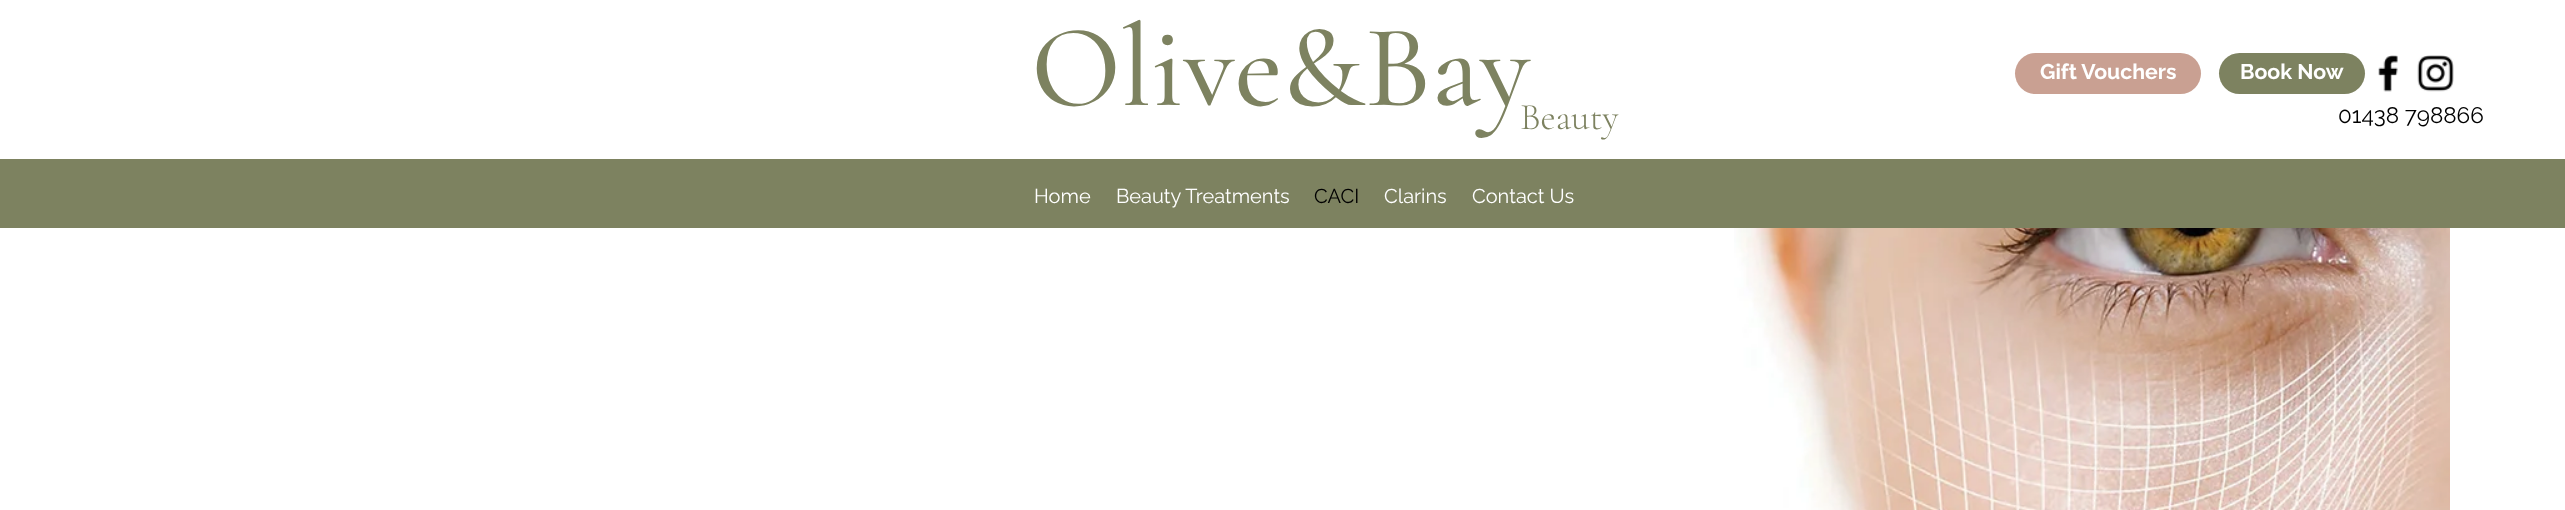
<svg xmlns="http://www.w3.org/2000/svg" xmlns:xlink="http://www.w3.org/1999/xlink" width="2565" height="510" viewBox="0 0 2565 510">
<style>
.cls-1{font:500 117.5px Cormorant Garamond;fill:#7d8260}
.cls-2{font:300 37.5px Cormorant Garamond;fill:#7d8260}
.cls-3{font:bold 21.25px Raleway;fill:#ffffff}
.cls-4{font:22.5px Raleway;fill:#000000}
.cls-5{font:20px Raleway;fill:#ffffff}
.cls-6{font:20px Raleway;fill:#000000}
</style>
<rect width="100%" height="100%" fill="#ffffff"/>
<rect fill="#c9a092" x="2015" y="53" width="186" height="41" rx="20.5"/>
<rect fill="#7d8260" x="2219" y="53" width="146" height="41" rx="20.5"/>
<image xlink:href="image0.png" x="2378" y="55" width="20" height="37"/>
<image xlink:href="image1.png" x="2417" y="55" width="37" height="37"/>
<rect fill="#7d8260" x="0" y="159" width="2565" height="69"/>
<image xlink:href="image2.png" x="1734" y="228" width="716" height="282"/>
<text class="cls-1" x="1031" y="105">Olive&amp;Bay</text>
<text class="cls-2" x="1520" y="129">Beauty</text>
<text class="cls-3" x="2040" y="79">Gift Vouchers</text>
<text class="cls-3" x="2240" y="79">Book Now</text>
<text class="cls-4" x="2338" y="123">01438 798866</text>
<text class="cls-5" x="1034" y="203">Home</text>
<text class="cls-5" x="1116" y="203">Beauty Treatments</text>
<text class="cls-6" x="1314" y="203">CACI</text>
<text class="cls-5" x="1384" y="203">Clarins</text>
<text class="cls-5" x="1472" y="203">Contact Us</text>
</svg>
